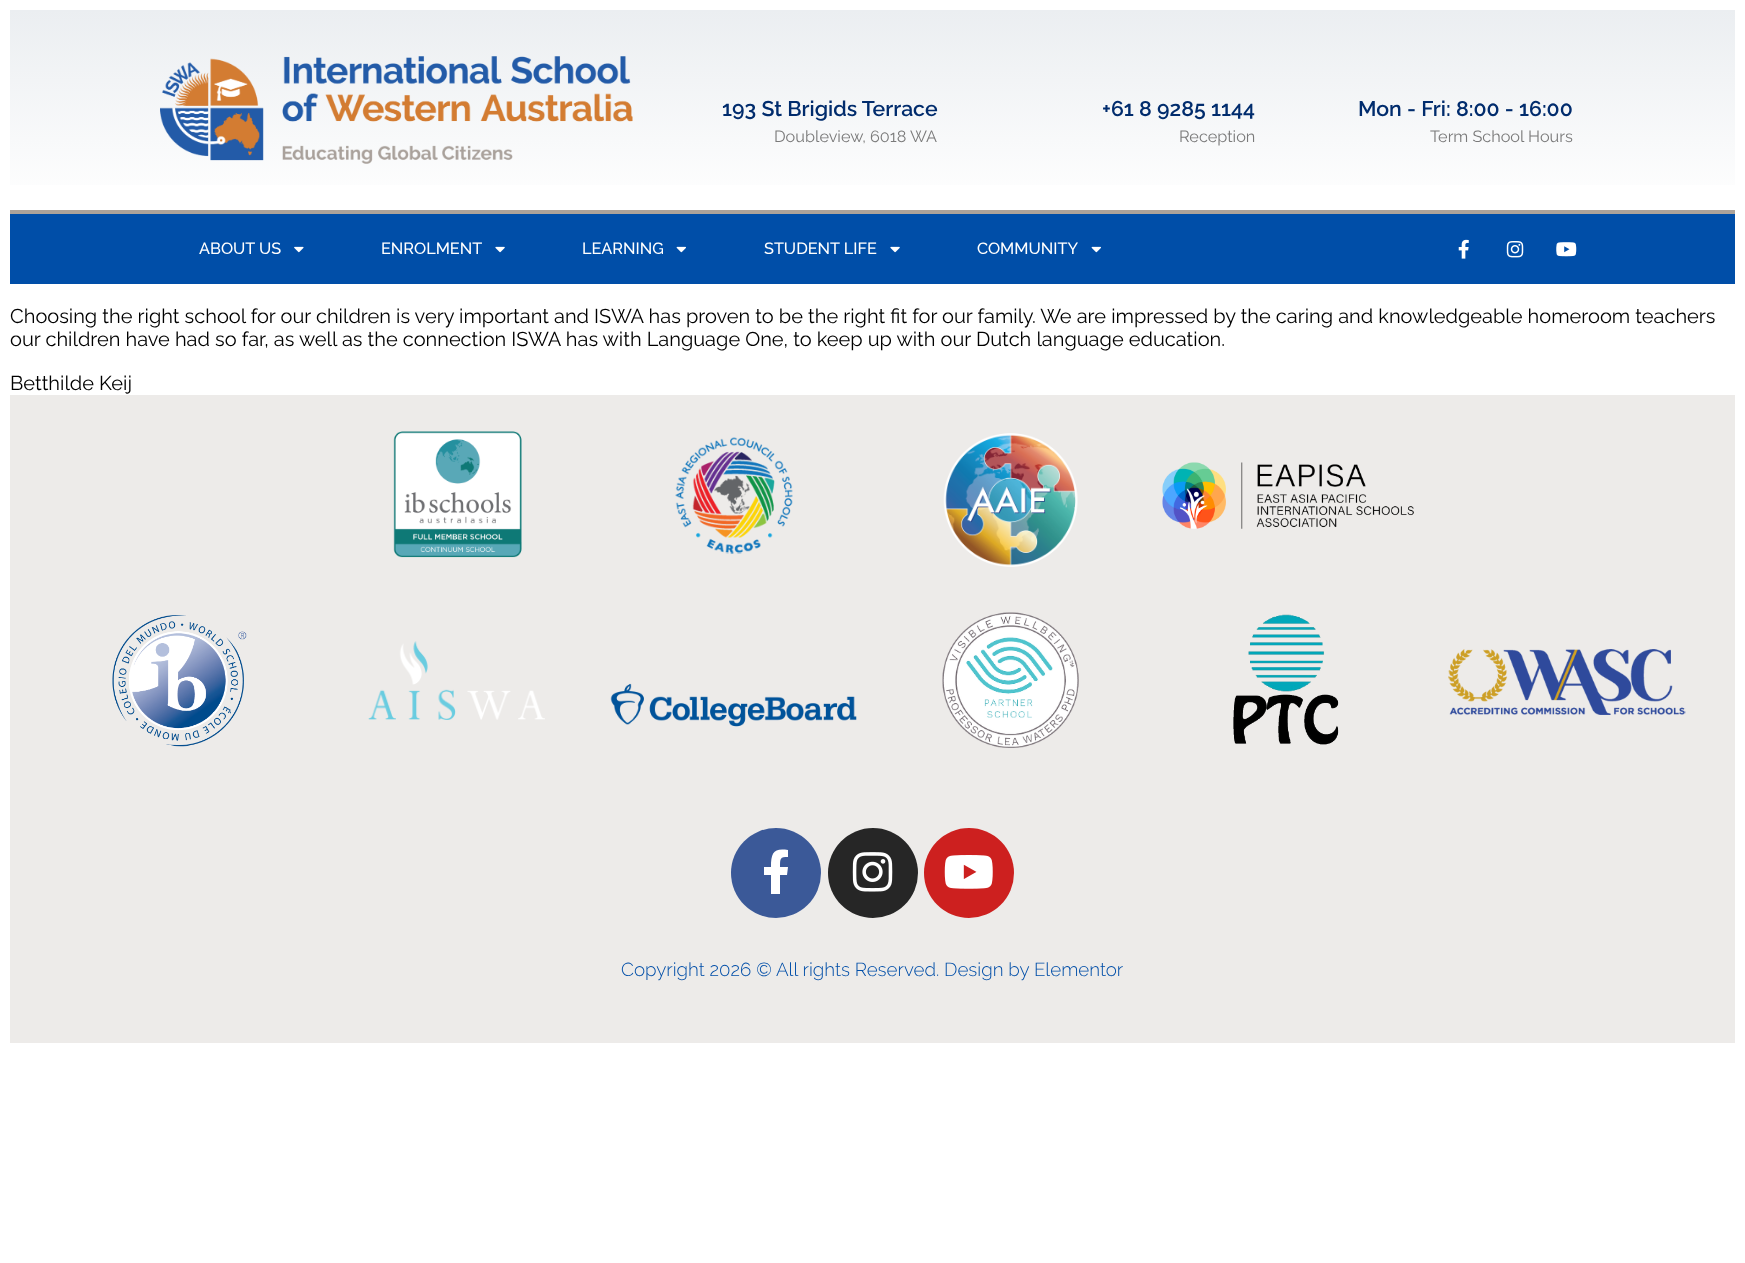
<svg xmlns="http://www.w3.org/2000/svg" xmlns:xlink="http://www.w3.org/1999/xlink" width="1745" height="1263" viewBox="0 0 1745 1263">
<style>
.cls-1{font:600 21.25px Raleway;fill:#012c6d}
.cls-2{font:16.25px Raleway;fill:#7a7a7a}
.cls-3{font:500 16.25px Raleway;fill:#ffffff}
.cls-4{font:20px Raleway;fill:#000000}
.cls-5{font:300 18.75px Raleway;fill:#004ea8}
</style>
<defs>
<linearGradient id="g1" gradientUnits="userSpaceOnUse" x1="873" y1="10" x2="873" y2="210"><stop offset="0" stop-color="#ebeef1"/><stop offset="1" stop-color="#ffffff"/></linearGradient>
</defs>
<rect width="100%" height="100%" fill="#ffffff"/>
<rect fill="url(#g1)" x="10" y="10" width="1725" height="175"/>
<image xlink:href="image0.png" x="160" y="56" width="473" height="108"/>
<rect fill="#004ea8" x="10" y="214" width="1725" height="70"/>
<rect fill="#aca39a" x="10" y="210" width="1725" height="4"/>
<image xlink:href="image1.png" x="294" y="246" width="10" height="7"/>
<image xlink:href="image2.png" x="495" y="246" width="10" height="7"/>
<image xlink:href="image3.png" x="676" y="246" width="10" height="7"/>
<image xlink:href="image2.png" x="890" y="246" width="10" height="7"/>
<image xlink:href="image3.png" x="1091" y="246" width="10" height="7"/>
<image xlink:href="image4.png" x="1458" y="239" width="11" height="20"/>
<image xlink:href="image5.png" x="1506" y="241" width="18" height="17"/>
<image xlink:href="image6.png" x="1556" y="242" width="21" height="15"/>
<rect fill="#edebe9" x="10" y="395" width="1725" height="648"/>
<image xlink:href="image7.png" x="393" y="431" width="129" height="127"/>
<image xlink:href="image8.png" x="675" y="437" width="118" height="117"/>
<image xlink:href="image9.png" x="943" y="433" width="135" height="134"/>
<image xlink:href="image10.png" x="1162" y="462" width="252" height="67"/>
<image xlink:href="image11.png" x="112" y="615" width="135" height="132"/>
<image xlink:href="image12.png" x="368" y="641" width="177" height="79"/>
<image xlink:href="image13.png" x="610" y="683" width="247" height="44"/>
<image xlink:href="image14.png" x="942" y="612" width="137" height="136"/>
<image xlink:href="image15.png" x="1233" y="614" width="106" height="131"/>
<image xlink:href="image16.png" x="1448" y="649" width="238" height="66"/>
<circle fill="#3b5998" cx="776" cy="873" r="45"/>
<path fill="#ffffff" d="M787 875H780V894H771V875H764V867H771C771 852 774 848 788 850V857C780 857 780 858 780 867H788Z"/>
<circle fill="#262626" cx="873" cy="873" r="45"/>
<image xlink:href="image17.png" x="852" y="852" width="41" height="40"/>
<circle fill="#cd201f" cx="969" cy="873" r="45"/>
<image xlink:href="image18.png" x="944" y="855" width="49" height="34"/>
<text class="cls-1" x="722" y="116">193 St Brigids Terrace</text>
<text class="cls-2" x="774" y="142">Doubleview, 6018 WA</text>
<text class="cls-1" x="1102" y="116">+61 8 9285 1144</text>
<text class="cls-2" x="1179" y="142">Reception</text>
<text class="cls-1" x="1358" y="116">Mon - Fri: 8:00 - 16:00</text>
<text class="cls-2" x="1430" y="142">Term School Hours</text>
<text class="cls-3" x="199" y="254">ABOUT US</text>
<text class="cls-3" x="381" y="254">ENROLMENT</text>
<text class="cls-3" x="582" y="254">LEARNING</text>
<text class="cls-3" x="764" y="254">STUDENT LIFE</text>
<text class="cls-3" x="977" y="254">COMMUNITY</text>
<text class="cls-4"><tspan x="10" y="323">Choosing the right school for our children is very important and ISWA has proven to be the right fit for our family. We are impressed by the caring and knowledgeable homeroom teachers</tspan><tspan x="10" y="346">our children have had so far, as well as the connection ISWA has with Language One, to keep up with our Dutch language education.</tspan></text>
<text class="cls-4" x="10" y="390">Betthilde Keij</text>
<text class="cls-5" x="621" y="976">Copyright 2026 © All rights Reserved. Design by Elementor</text>
</svg>
